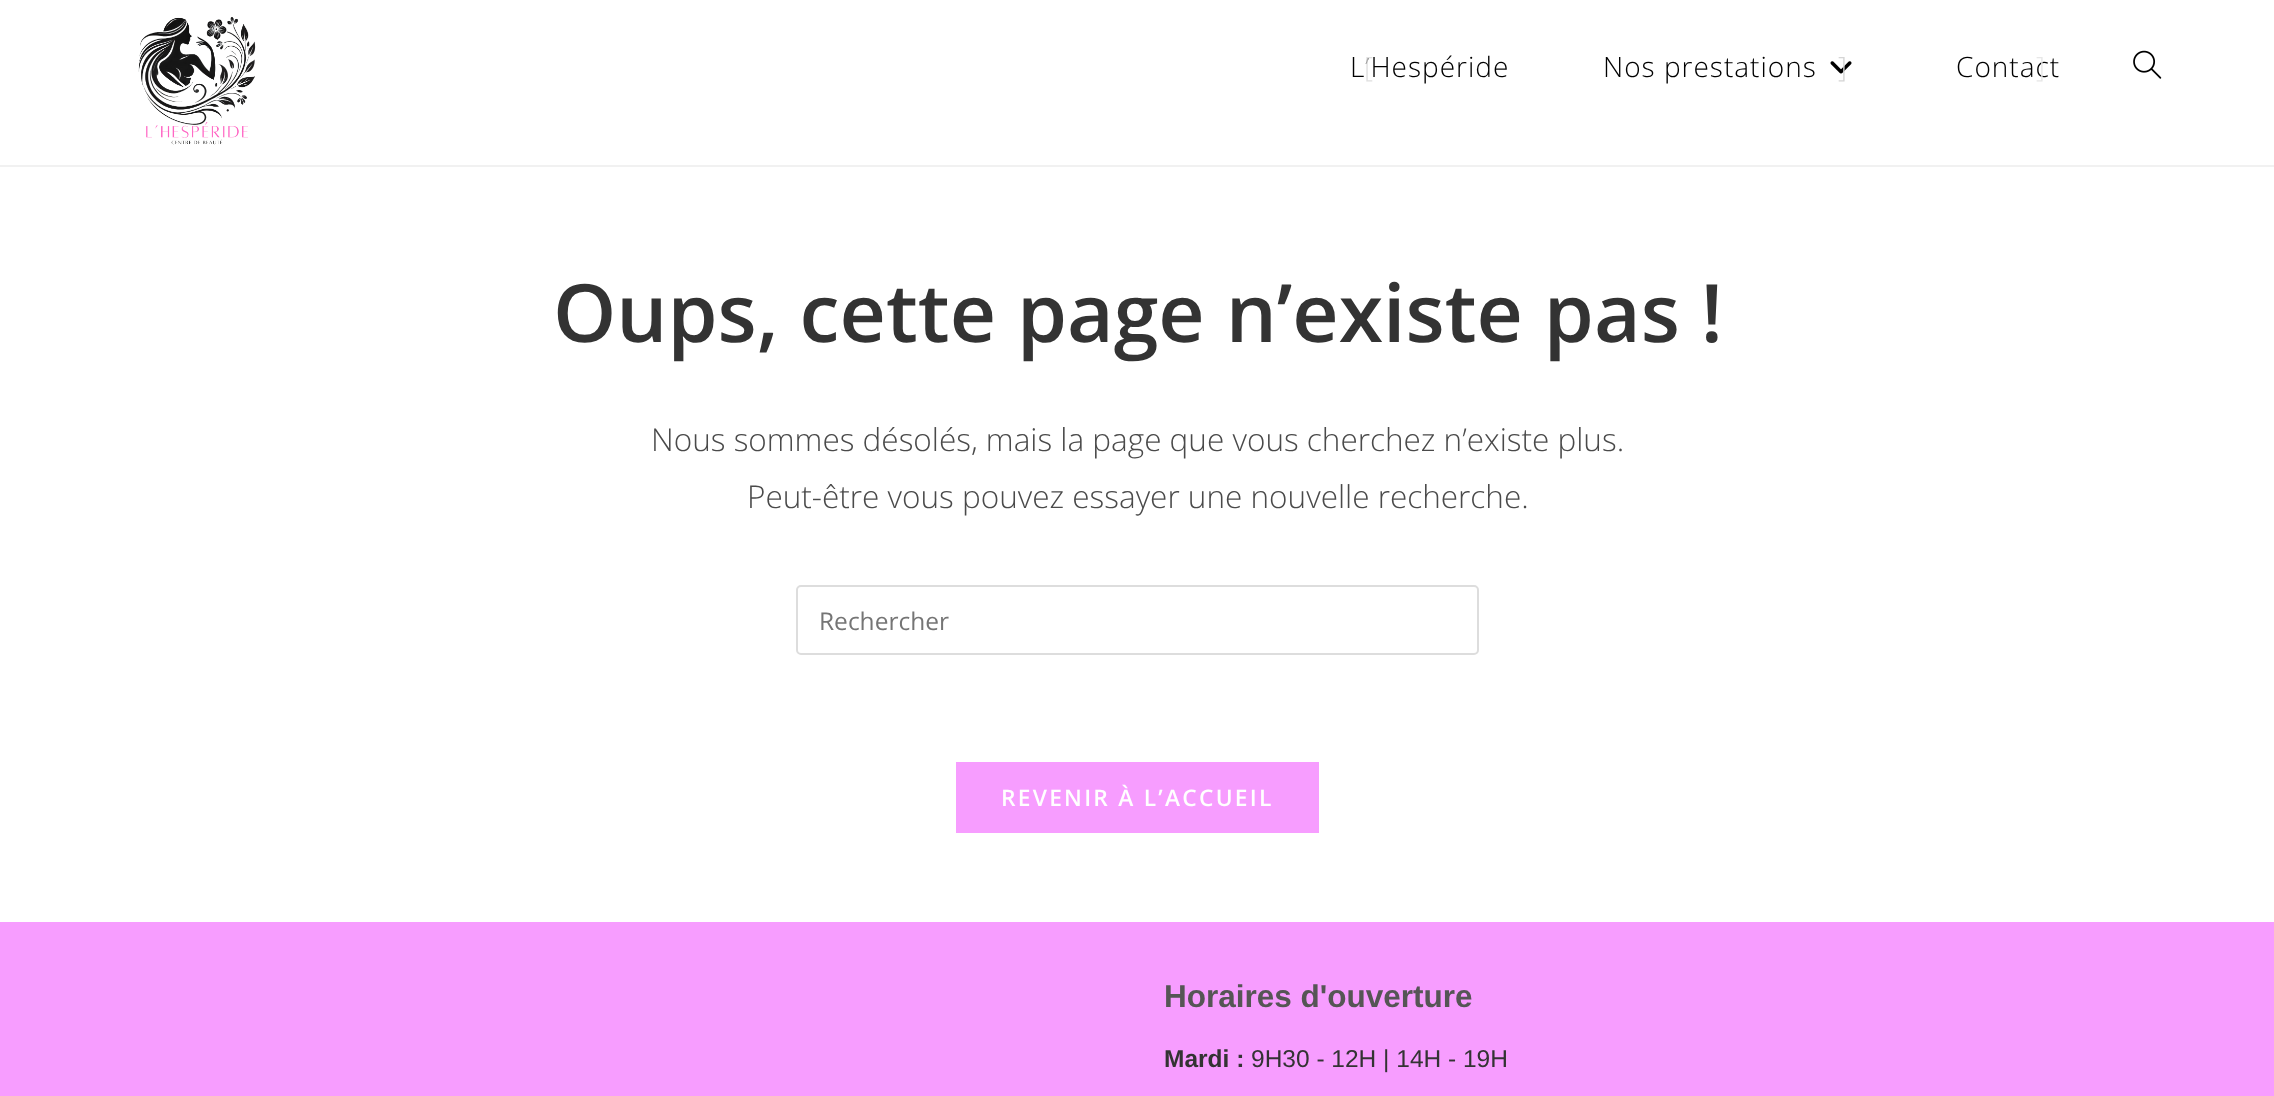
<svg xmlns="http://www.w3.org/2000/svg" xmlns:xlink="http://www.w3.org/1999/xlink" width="2274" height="1096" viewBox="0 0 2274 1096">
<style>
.cls-1{font:300 28px Open Sans;letter-spacing:1px;fill:#000000}
.cls-2{font:300 28px Open Sans;letter-spacing:1px;fill:#e0e0e0}
.cls-3{font:300 28px Open Sans;letter-spacing:1px;fill:#d5d5d5}
.cls-4{font:300 28px Open Sans;letter-spacing:1px;fill:#e7e7e7}
.cls-5{font:600 80.5px Open Sans;fill:#333333}
.cls-6{font:300 31.5px Open Sans;fill:#4a4a4a}
.cls-7{font:24.5px Open Sans;fill:#757575}
.cls-8{font:600 22.75px Open Sans;letter-spacing:2.25px;fill:#ffffff}
.cls-9{font:bold 31.5px Liberation Sans;fill:#555555}
.cls-10{font:bold 24.5px Liberation Sans;fill:#333333}
.cls-11{font:24.5px Liberation Sans;fill:#333333}
</style>
<rect width="100%" height="100%" fill="#ffffff"/>
<rect fill="#f1f1f1" x="0" y="165" width="2274" height="2"/>
<image xlink:href="image0.png" x="138" y="17" width="118" height="128"/>
<image xlink:href="image1.png" x="1830" y="61" width="22" height="13"/>
<image xlink:href="image2.png" x="2133" y="50" width="29" height="29"/>
<rect fill="none" stroke="#dddddd" stroke-width="2" x="797" y="586" width="681" height="68" rx="4"/>
<rect fill="#f79dff" x="956" y="762" width="363" height="71"/>
<rect fill="#f79dff" x="0" y="922" width="2274" height="174"/>
<text class="cls-1" x="1350" y="77">L’Hespéride</text>
<text class="cls-2" x="1364" y="77">[</text>
<text class="cls-1" x="1603" y="77">Nos prestations</text>
<text class="cls-3" x="1838" y="77">]</text>
<text class="cls-1" x="1956" y="77">Contact</text>
<text class="cls-4" x="2036" y="77">]</text>
<text class="cls-5" x="553" y="342">Oups, cette page n’existe pas !</text>
<text class="cls-6" x="651" y="451">Nous sommes désolés, mais la page que vous cherchez n’existe plus.</text>
<text class="cls-6" x="747" y="508">Peut-être vous pouvez essayer une nouvelle recherche.</text>
<text class="cls-7" x="819" y="630">Rechercher</text>
<text class="cls-8" x="1001" y="806">REVENIR À L’ACCUEIL</text>
<text class="cls-9" x="1164" y="1007">Horaires d'ouverture</text>
<text class="cls-10" x="1164" y="1067">Mardi :</text>
<text class="cls-11" x="1251" y="1067">9H30 - 12H | 14H - 19H</text>
</svg>
